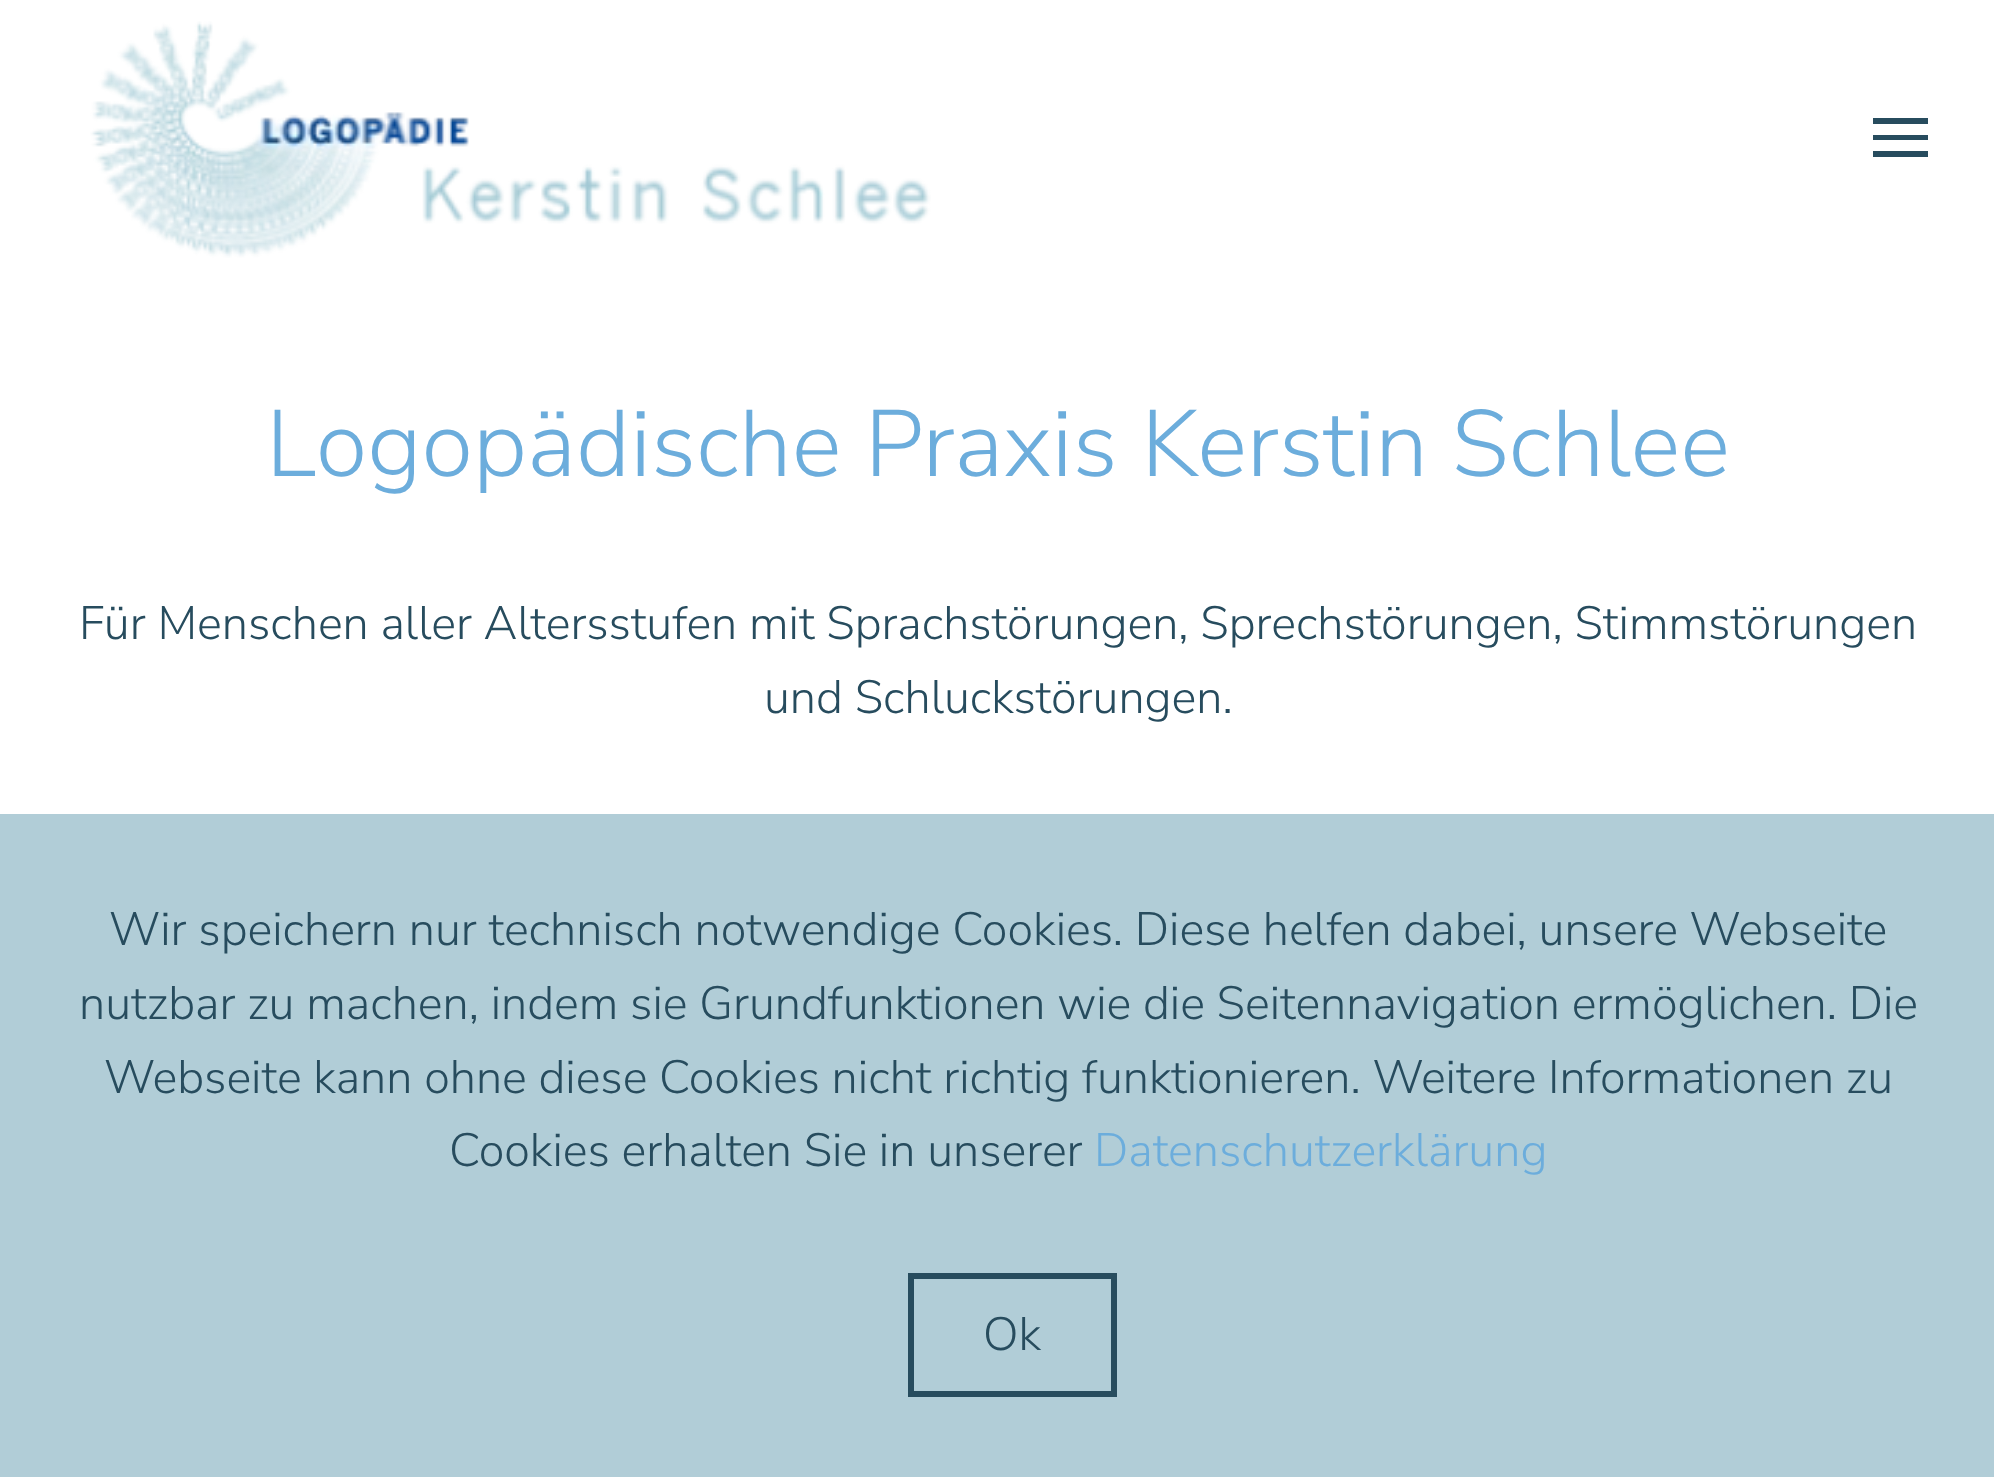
<svg xmlns="http://www.w3.org/2000/svg" xmlns:xlink="http://www.w3.org/1999/xlink" width="1994" height="1477" viewBox="0 0 1994 1477">
<style>
.cls-1{font:200 94px Nunito Sans;fill:#6caddc}
.cls-2{font:200 46.75px Nunito Sans;fill:#274c5e}
.cls-3{font:200 46.75px Nunito Sans;fill:#6caddc}
</style>
<rect width="100%" height="100%" fill="#ffffff"/>
<image xlink:href="image0.png" x="90" y="21" width="841" height="237"/>
<rect fill="#274c5e" x="1873" y="118" width="55" height="6"/>
<rect fill="#274c5e" x="1873" y="135" width="55" height="5"/>
<rect fill="#274c5e" x="1873" y="151" width="55" height="6"/>
<rect fill="#b1cdd7" x="0" y="814" width="1994" height="663"/>
<rect fill="none" stroke="#274c5e" stroke-width="6" x="911" y="1276" width="203" height="118"/>
<text class="cls-1" x="266" y="476">Logopädische Praxis Kerstin Schlee</text>
<text class="cls-2" x="79" y="639">Für Menschen aller Altersstufen mit Sprachstörungen, Sprechstörungen, Stimmstörungen</text>
<text class="cls-2" x="764" y="713">und Schluckstörungen.</text>
<text class="cls-2" x="109" y="945">Wir speichern nur technisch notwendige Cookies. Diese helfen dabei, unsere Webseite</text>
<text class="cls-2" x="79" y="1019">nutzbar zu machen, indem sie Grundfunktionen wie die Seitennavigation ermöglichen. Die</text>
<text class="cls-2" x="104" y="1093">Webseite kann ohne diese Cookies nicht richtig funktionieren. Weitere Informationen zu</text>
<text class="cls-2" x="449" y="1166">Cookies erhalten Sie in unserer</text>
<text class="cls-3" x="1094" y="1166">Datenschutzerklärung</text>
<text class="cls-2" x="983" y="1350">Ok</text>
</svg>
